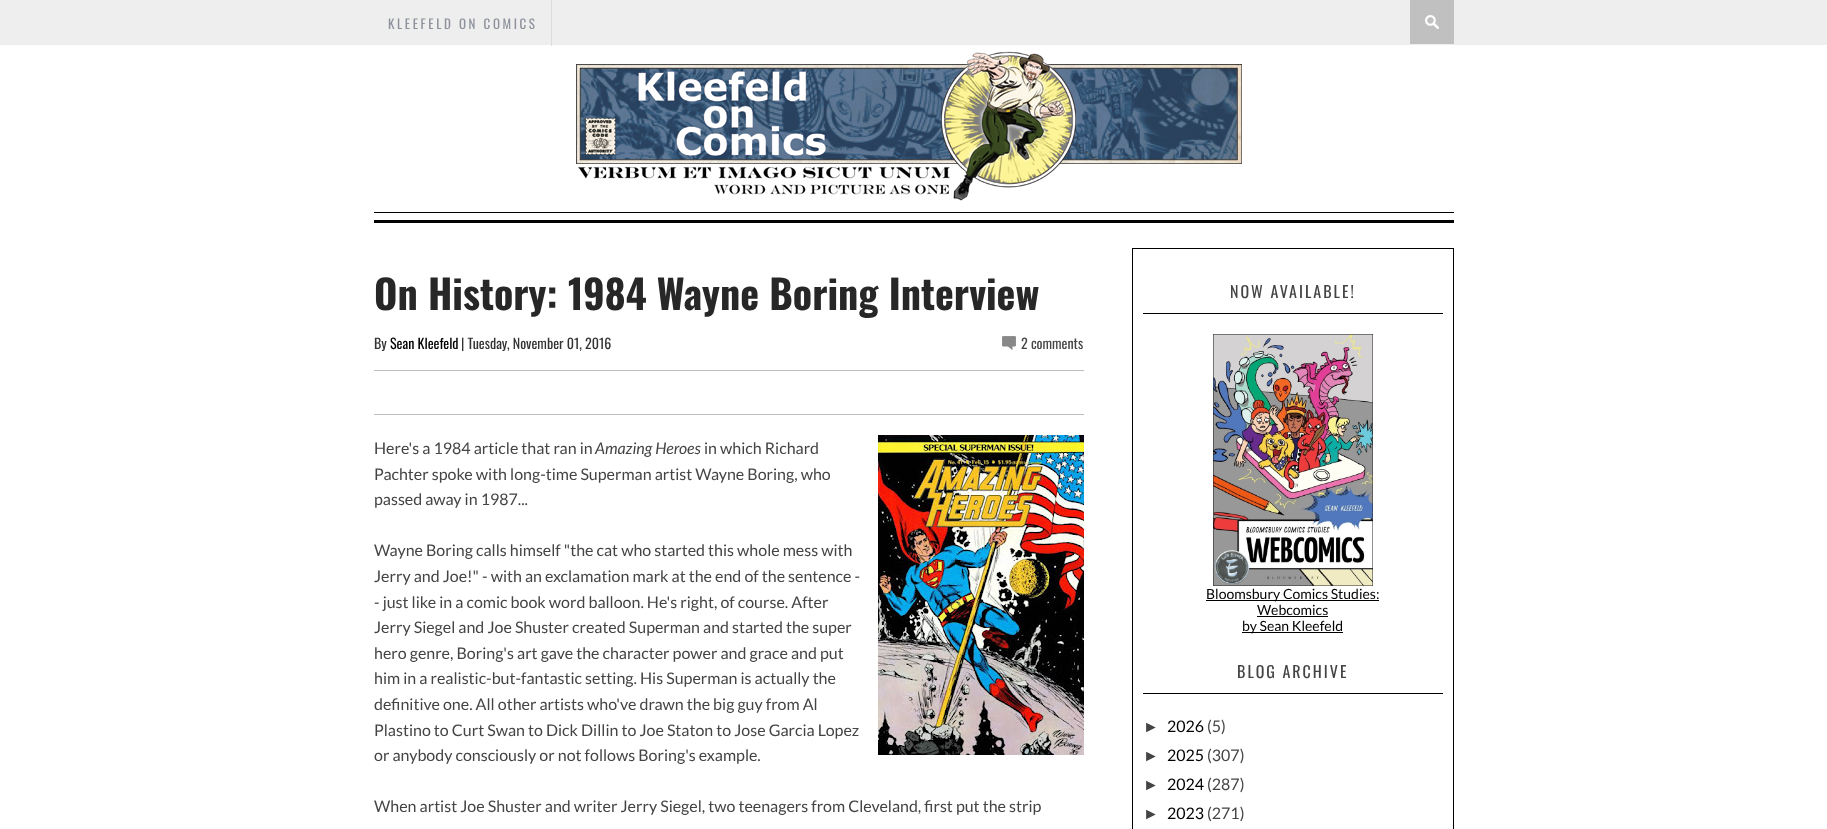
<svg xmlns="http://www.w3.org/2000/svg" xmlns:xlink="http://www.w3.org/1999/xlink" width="1827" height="829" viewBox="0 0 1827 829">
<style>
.cls-1{font:13px Oswald;letter-spacing:2.6px;fill:#8c919b}
.cls-2{font:bold 40px Oswald;fill:#272727}
.cls-3{font:14px Oswald;fill:#333333}
.cls-4{font:14px Oswald;fill:#000000}
.cls-5{font:14px Oswald;fill:#444444}
.cls-6{font:16px Lato;fill:#444444}
.cls-7{font:italic 16px Lato;fill:#444444}
.cls-8{font:16px Oswald;letter-spacing:2px;fill:#444444}
.cls-9{font:14px Lato;fill:#000000}
.cls-10{font:16px Liberation Sans;fill:#444444}
.cls-11{font:16px Lato;fill:#000000}
</style>
<rect width="100%" height="100%" fill="#ffffff"/>
<rect fill="#eeeeee" x="0" y="0" width="1827" height="45"/>
<rect fill="#dddddd" x="551" y="0" width="1" height="46"/>
<rect fill="#c0c0c0" x="1410" y="0" width="44" height="44"/>
<image xlink:href="image0.png" x="1425" y="15" width="14" height="14"/>
<image xlink:href="image1.png" x="576" y="51" width="666" height="150"/>
<rect fill="#000000" x="374" y="212" width="1080" height="1"/>
<rect fill="#000000" x="374" y="220" width="1080" height="3"/>
<image xlink:href="image2.png" x="1002" y="336" width="14" height="14"/>
<rect fill="#bcbcbc" x="374" y="370" width="710" height="1"/>
<rect fill="#bcbcbc" x="374" y="414" width="710" height="1"/>
<image xlink:href="image3.png" x="878" y="435" width="206" height="320"/>
<rect fill="none" stroke="#000000" x="1132.5" y="248.5" width="321" height="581"/>
<rect fill="#000000" x="1143" y="313" width="300" height="1"/>
<image xlink:href="image4.png" x="1213" y="334" width="160" height="252"/>
<rect fill="#000000" x="1206" y="600" width="173" height="1"/>
<rect fill="#000000" x="1257" y="616" width="71" height="1"/>
<rect fill="#000000" x="1242" y="632" width="101" height="1"/>
<rect fill="#000000" x="1143" y="693" width="300" height="1"/>
<text class="cls-1" x="388" y="29">KLEEFELD ON COMICS</text>
<text class="cls-2" x="374" y="310">On History: 1984 Wayne Boring Interview</text>
<text class="cls-3" x="374" y="349">By</text>
<text class="cls-4" x="390" y="349">Sean Kleefeld</text>
<text class="cls-3" x="461" y="349">| Tuesday, November 01, 2016</text>
<text class="cls-5" x="1021" y="349">2 comments</text>
<text class="cls-6" x="374" y="454">Here's a 1984 article that ran in</text>
<text class="cls-7" x="595" y="454">Amazing Heroes</text>
<text class="cls-6" x="704" y="454">in which Richard</text>
<text class="cls-6"><tspan x="374" y="480">Pachter spoke with long-time Superman artist Wayne Boring, who</tspan><tspan x="374" y="505">passed away in 1987...</tspan></text>
<text class="cls-6"><tspan x="374" y="556">Wayne Boring calls himself "the cat who started this whole mess with</tspan><tspan x="374" y="582">Jerry and Joe!" - with an exclamation mark at the end of the sentence -</tspan><tspan x="374" y="608">- just like in a comic book word balloon. He's right, of course. After</tspan><tspan x="374" y="633">Jerry Siegel and Joe Shuster created Superman and started the super</tspan><tspan x="374" y="659">hero genre, Boring's art gave the character power and grace and put</tspan><tspan x="374" y="684">him in a realistic-but-fantastic setting. His Superman is actually the</tspan><tspan x="374" y="710">definitive one. All other artists who've drawn the big guy from Al</tspan><tspan x="374" y="736">Plastino to Curt Swan to Dick Dillin to Joe Staton to Jose Garcia Lopez</tspan><tspan x="374" y="761">or anybody consciously or not follows Boring's example.</tspan></text>
<text class="cls-6" x="374" y="812">When artist Joe Shuster and writer Jerry Siegel, two teenagers from Cleveland, first put the strip</text>
<text class="cls-8" x="1230" y="298">NOW AVAILABLE!</text>
<text class="cls-9" x="1206" y="599">Bloomsbury Comics Studies:</text>
<text class="cls-9" x="1257" y="615">Webcomics</text>
<text class="cls-9" x="1242" y="631">by Sean Kleefeld</text>
<text class="cls-8" x="1237" y="678">BLOG ARCHIVE</text>
<text class="cls-10" x="1143" y="732">►</text>
<text class="cls-11" x="1167" y="732">2026</text>
<text class="cls-6" x="1207" y="732">(5)</text>
<text class="cls-10" x="1143" y="761">►</text>
<text class="cls-11" x="1167" y="761">2025</text>
<text class="cls-6" x="1207" y="761">(307)</text>
<text class="cls-10" x="1143" y="790">►</text>
<text class="cls-11" x="1167" y="790">2024</text>
<text class="cls-6" x="1207" y="790">(287)</text>
<text class="cls-10" x="1143" y="819">►</text>
<text class="cls-11" x="1167" y="819">2023</text>
<text class="cls-6" x="1207" y="819">(271)</text>
</svg>
